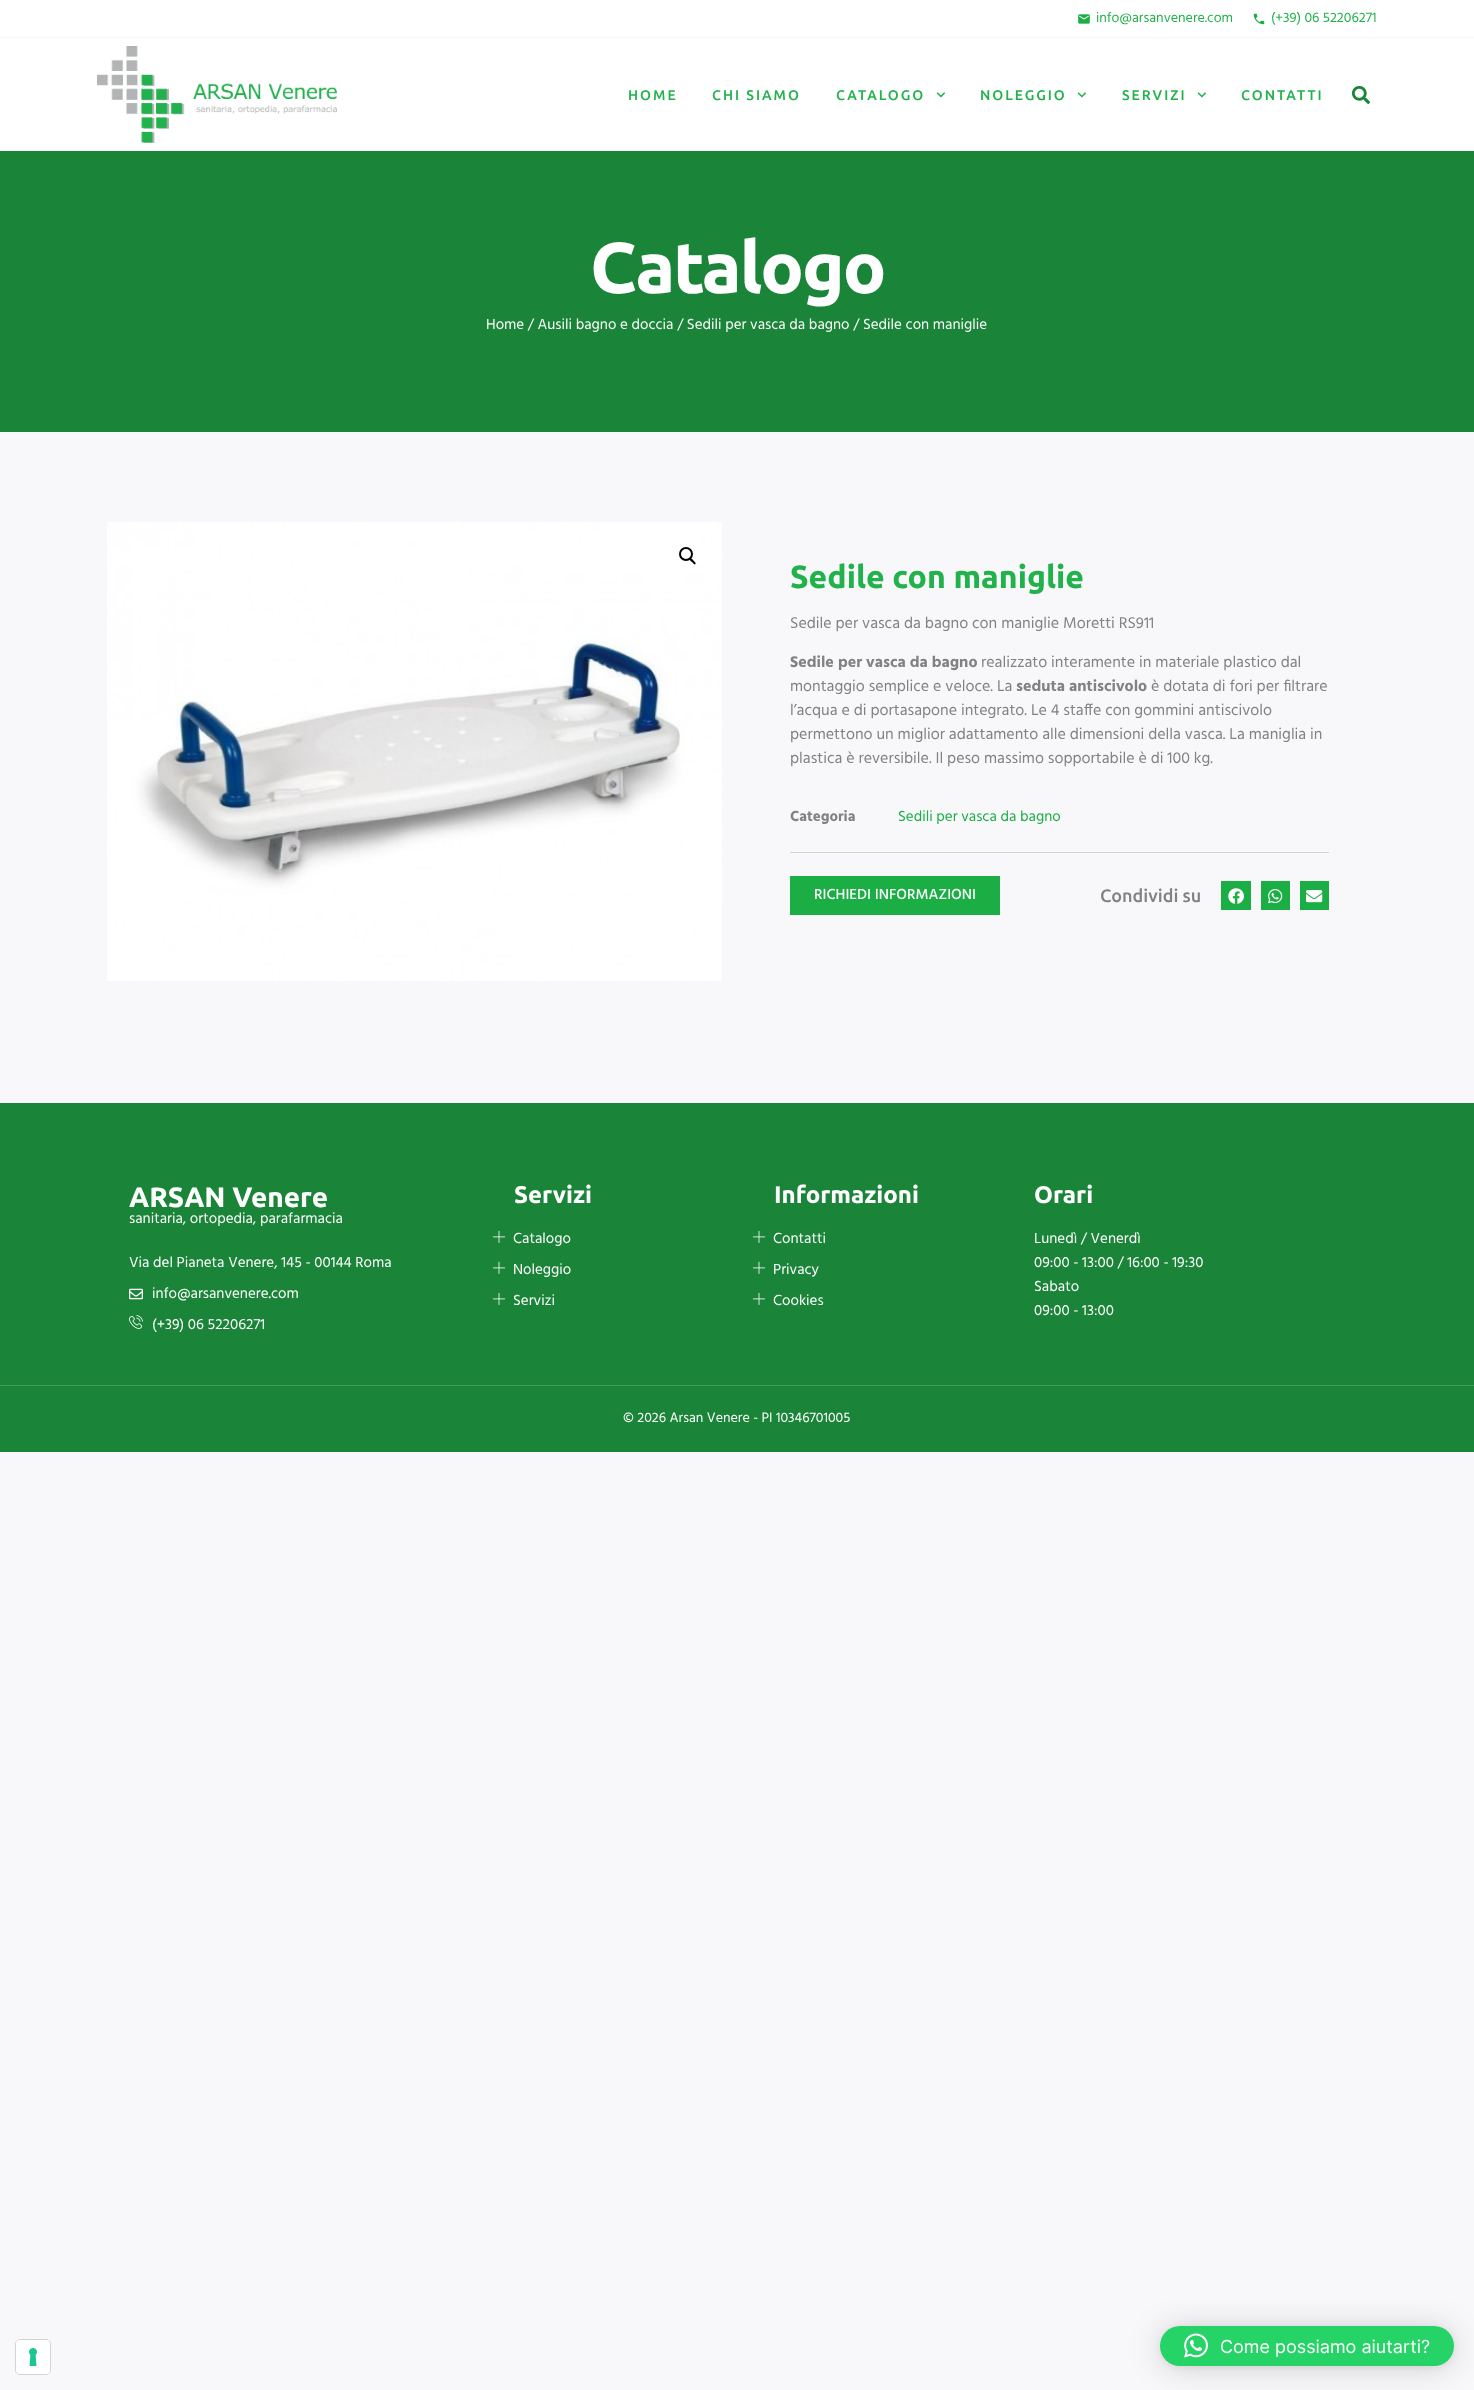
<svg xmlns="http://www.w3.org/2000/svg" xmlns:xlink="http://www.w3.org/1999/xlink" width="1474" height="2390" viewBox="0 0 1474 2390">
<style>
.cls-1{font:14px Hind;fill:#22b24c}
.cls-2{font:500 14px Ubuntu;letter-spacing:2px;fill:#22b24c}
.cls-3{font:bold 72px Ubuntu;letter-spacing:-2px;fill:#ffffff}
.cls-4{font:15px Hind;fill:#ffffff}
.cls-5{font:bold 32px Ubuntu;fill:#22b24c}
.cls-6{font:16px Hind;fill:#828282}
.cls-7{font:bold 16px Hind;fill:#828282}
.cls-8{font:bold 15px Hind;fill:#828282}
.cls-9{font:15px Hind;fill:#1aae44}
.cls-10{font:500 15px Hind;fill:#ffffff}
.cls-11{font:500 18px Ubuntu;fill:#828282}
.cls-12{font:bold 28px Ubuntu;fill:#ffffff}
.cls-13{font:bold 24px Ubuntu;fill:#ffffff}
.cls-14{font:14px Hind;fill:#ffffff}
.cls-15{font:18px Inter;fill:#ffffff}
</style>
<rect width="100%" height="100%" fill="#f8f8fa"/>
<rect fill="#ffffff" x="0" y="0" width="1474" height="37"/>
<image xlink:href="image0.png" x="1078" y="14" width="12" height="10"/>
<image xlink:href="image1.png" x="1253" y="13" width="12" height="12"/>
<rect fill="#ffffff" x="0" y="38" width="1474" height="113"/>
<image xlink:href="image2.png" x="97" y="46" width="240" height="97"/>
<image xlink:href="image3.png" x="936" y="92" width="9" height="6"/>
<image xlink:href="image3.png" x="1077" y="92" width="9" height="6"/>
<image xlink:href="image3.png" x="1197" y="92" width="9" height="6"/>
<image xlink:href="image4.png" x="1352" y="86" width="18" height="18"/>
<rect fill="#1a8438" x="0" y="151" width="1474" height="281"/>
<image xlink:href="image5.png" x="107" y="522" width="615" height="459"/>
<circle fill="none" stroke="#000000" stroke-width="2" cx="686" cy="554" r="6"/>
<path fill="#000000" d="M690 558.5C691 557.5 693 560 693.5 560.5C694 561.5 696.5 563 695.5 564C694.5 565.5 692.5 562.5 692 562C691.5 561.5 688.5 559.5 690 558.5Z"/>
<rect fill="#d2d2d2" x="790" y="852" width="539" height="1"/>
<rect fill="#1aae44" x="790" y="876" width="210" height="39"/>
<rect fill="#1aae44" x="1221" y="881" width="30" height="29"/>
<image xlink:href="image6.png" x="1228" y="888" width="16" height="16"/>
<rect fill="#1aae44" x="1261" y="881" width="29" height="29"/>
<image xlink:href="image7.png" x="1268" y="889" width="15" height="15"/>
<rect fill="#1aae44" x="1300" y="881" width="29" height="29"/>
<image xlink:href="image8.png" x="1306" y="890" width="17" height="13"/>
<rect fill="#1a8438" x="0" y="1103" width="1474" height="282"/>
<rect fill="#41995a" x="0" y="1385" width="1474" height="1"/>
<image xlink:href="image9.png" x="129" y="1288" width="14" height="12"/>
<image xlink:href="image10.png" x="129" y="1315" width="14" height="14"/>
<image xlink:href="image11.png" x="493" y="1230" width="12" height="13"/>
<image xlink:href="image11.png" x="493" y="1261" width="12" height="13"/>
<image xlink:href="image11.png" x="493" y="1292" width="12" height="13"/>
<image xlink:href="image11.png" x="753" y="1230" width="12" height="13"/>
<image xlink:href="image11.png" x="753" y="1261" width="12" height="13"/>
<image xlink:href="image11.png" x="753" y="1292" width="12" height="13"/>
<rect fill="#1a8438" x="0" y="1386" width="1474" height="66"/>
<rect fill="none" stroke="#d3d3d5" x="15.5" y="2339.5" width="35" height="35" rx="4.5"/>
<rect fill="#ffffff" x="16" y="2340" width="34" height="34" rx="4"/>
<image xlink:href="image12.png" x="29" y="2348" width="8" height="18"/>
<rect fill="#000000" fill-opacity="0.16" filter="blur(16px)" x="1160" y="2328" width="294" height="40" rx="20"/>
<rect fill="#000000" fill-opacity="0.06" filter="blur(3px)" x="1160" y="2327" width="294" height="40" rx="20"/>
<rect fill="#25d366" x="1160" y="2326" width="294" height="40" rx="20"/>
<image xlink:href="image13.png" x="1184" y="2333" width="24" height="25"/>
<text class="cls-1" x="1096" y="22">info@arsanvenere.com</text>
<text class="cls-1" x="1271" y="22">(+39) 06 52206271</text>
<text class="cls-2" x="628" y="100">HOME</text>
<text class="cls-2" x="712" y="100">CHI SIAMO</text>
<text class="cls-2" x="836" y="100">CATALOGO</text>
<text class="cls-2" x="980" y="100">NOLEGGIO</text>
<text class="cls-2" x="1122" y="100">SERVIZI</text>
<text class="cls-2" x="1241" y="100">CONTATTI</text>
<text class="cls-3" x="590" y="293">Catalogo</text>
<text class="cls-4" x="486" y="329">Home / Ausili bagno e doccia / Sedili per vasca da bagno / Sedile con maniglie</text>
<text class="cls-5" x="790" y="588">Sedile con maniglie</text>
<text class="cls-6" x="790" y="628">Sedile per vasca da bagno con maniglie Moretti RS911</text>
<text class="cls-7" x="790" y="667">Sedile per vasca da bagno</text>
<text class="cls-6" x="981" y="667">realizzato interamente in materiale plastico dal</text>
<text class="cls-6" x="790" y="691">montaggio semplice e veloce. La</text>
<text class="cls-7" x="1016" y="691">seduta antiscivolo</text>
<text class="cls-6" x="1151" y="691">è dotata di fori per filtrare</text>
<text class="cls-6"><tspan x="790" y="715">l’acqua e di portasapone integrato. Le 4 staffe con gommini antiscivolo</tspan><tspan x="790" y="739">permettono un miglior adattamento alle dimensioni della vasca. La maniglia in</tspan><tspan x="790" y="763">plastica è reversibile. Il peso massimo sopportabile è di 100 kg.</tspan></text>
<text class="cls-8" x="790" y="821">Categoria</text>
<text class="cls-9" x="898" y="821">Sedili per vasca da bagno</text>
<text class="cls-10" x="814" y="899">RICHIEDI INFORMAZIONI</text>
<text class="cls-11" x="1100" y="902">Condividi su</text>
<text class="cls-12" x="129" y="1207">ARSAN Venere</text>
<text class="cls-4" x="129" y="1223">sanitaria, ortopedia, parafarmacia</text>
<text class="cls-4" x="129" y="1267">Via del Pianeta Venere, 145 - 00144 Roma</text>
<text class="cls-4" x="152" y="1298">info@arsanvenere.com</text>
<text class="cls-4" x="152" y="1329">(+39) 06 52206271</text>
<text class="cls-13" x="514" y="1203">Servizi</text>
<text class="cls-4" x="513" y="1243">Catalogo</text>
<text class="cls-4" x="513" y="1274">Noleggio</text>
<text class="cls-4" x="513" y="1305">Servizi</text>
<text class="cls-13" x="774" y="1203">Informazioni</text>
<text class="cls-4" x="773" y="1243">Contatti</text>
<text class="cls-4" x="773" y="1274">Privacy</text>
<text class="cls-4" x="773" y="1305">Cookies</text>
<text class="cls-13" x="1034" y="1203">Orari</text>
<text class="cls-4"><tspan x="1034" y="1243">Lunedì / Venerdì</tspan><tspan x="1034" y="1267">09:00 - 13:00 / 16:00 - 19:30</tspan><tspan x="1034" y="1291">Sabato</tspan><tspan x="1034" y="1315">09:00 - 13:00</tspan></text>
<text class="cls-14" x="623" y="1422">© 2026 Arsan Venere - PI 10346701005</text>
<text class="cls-15" x="1220" y="2353">Come possiamo aiutarti?</text>
</svg>
